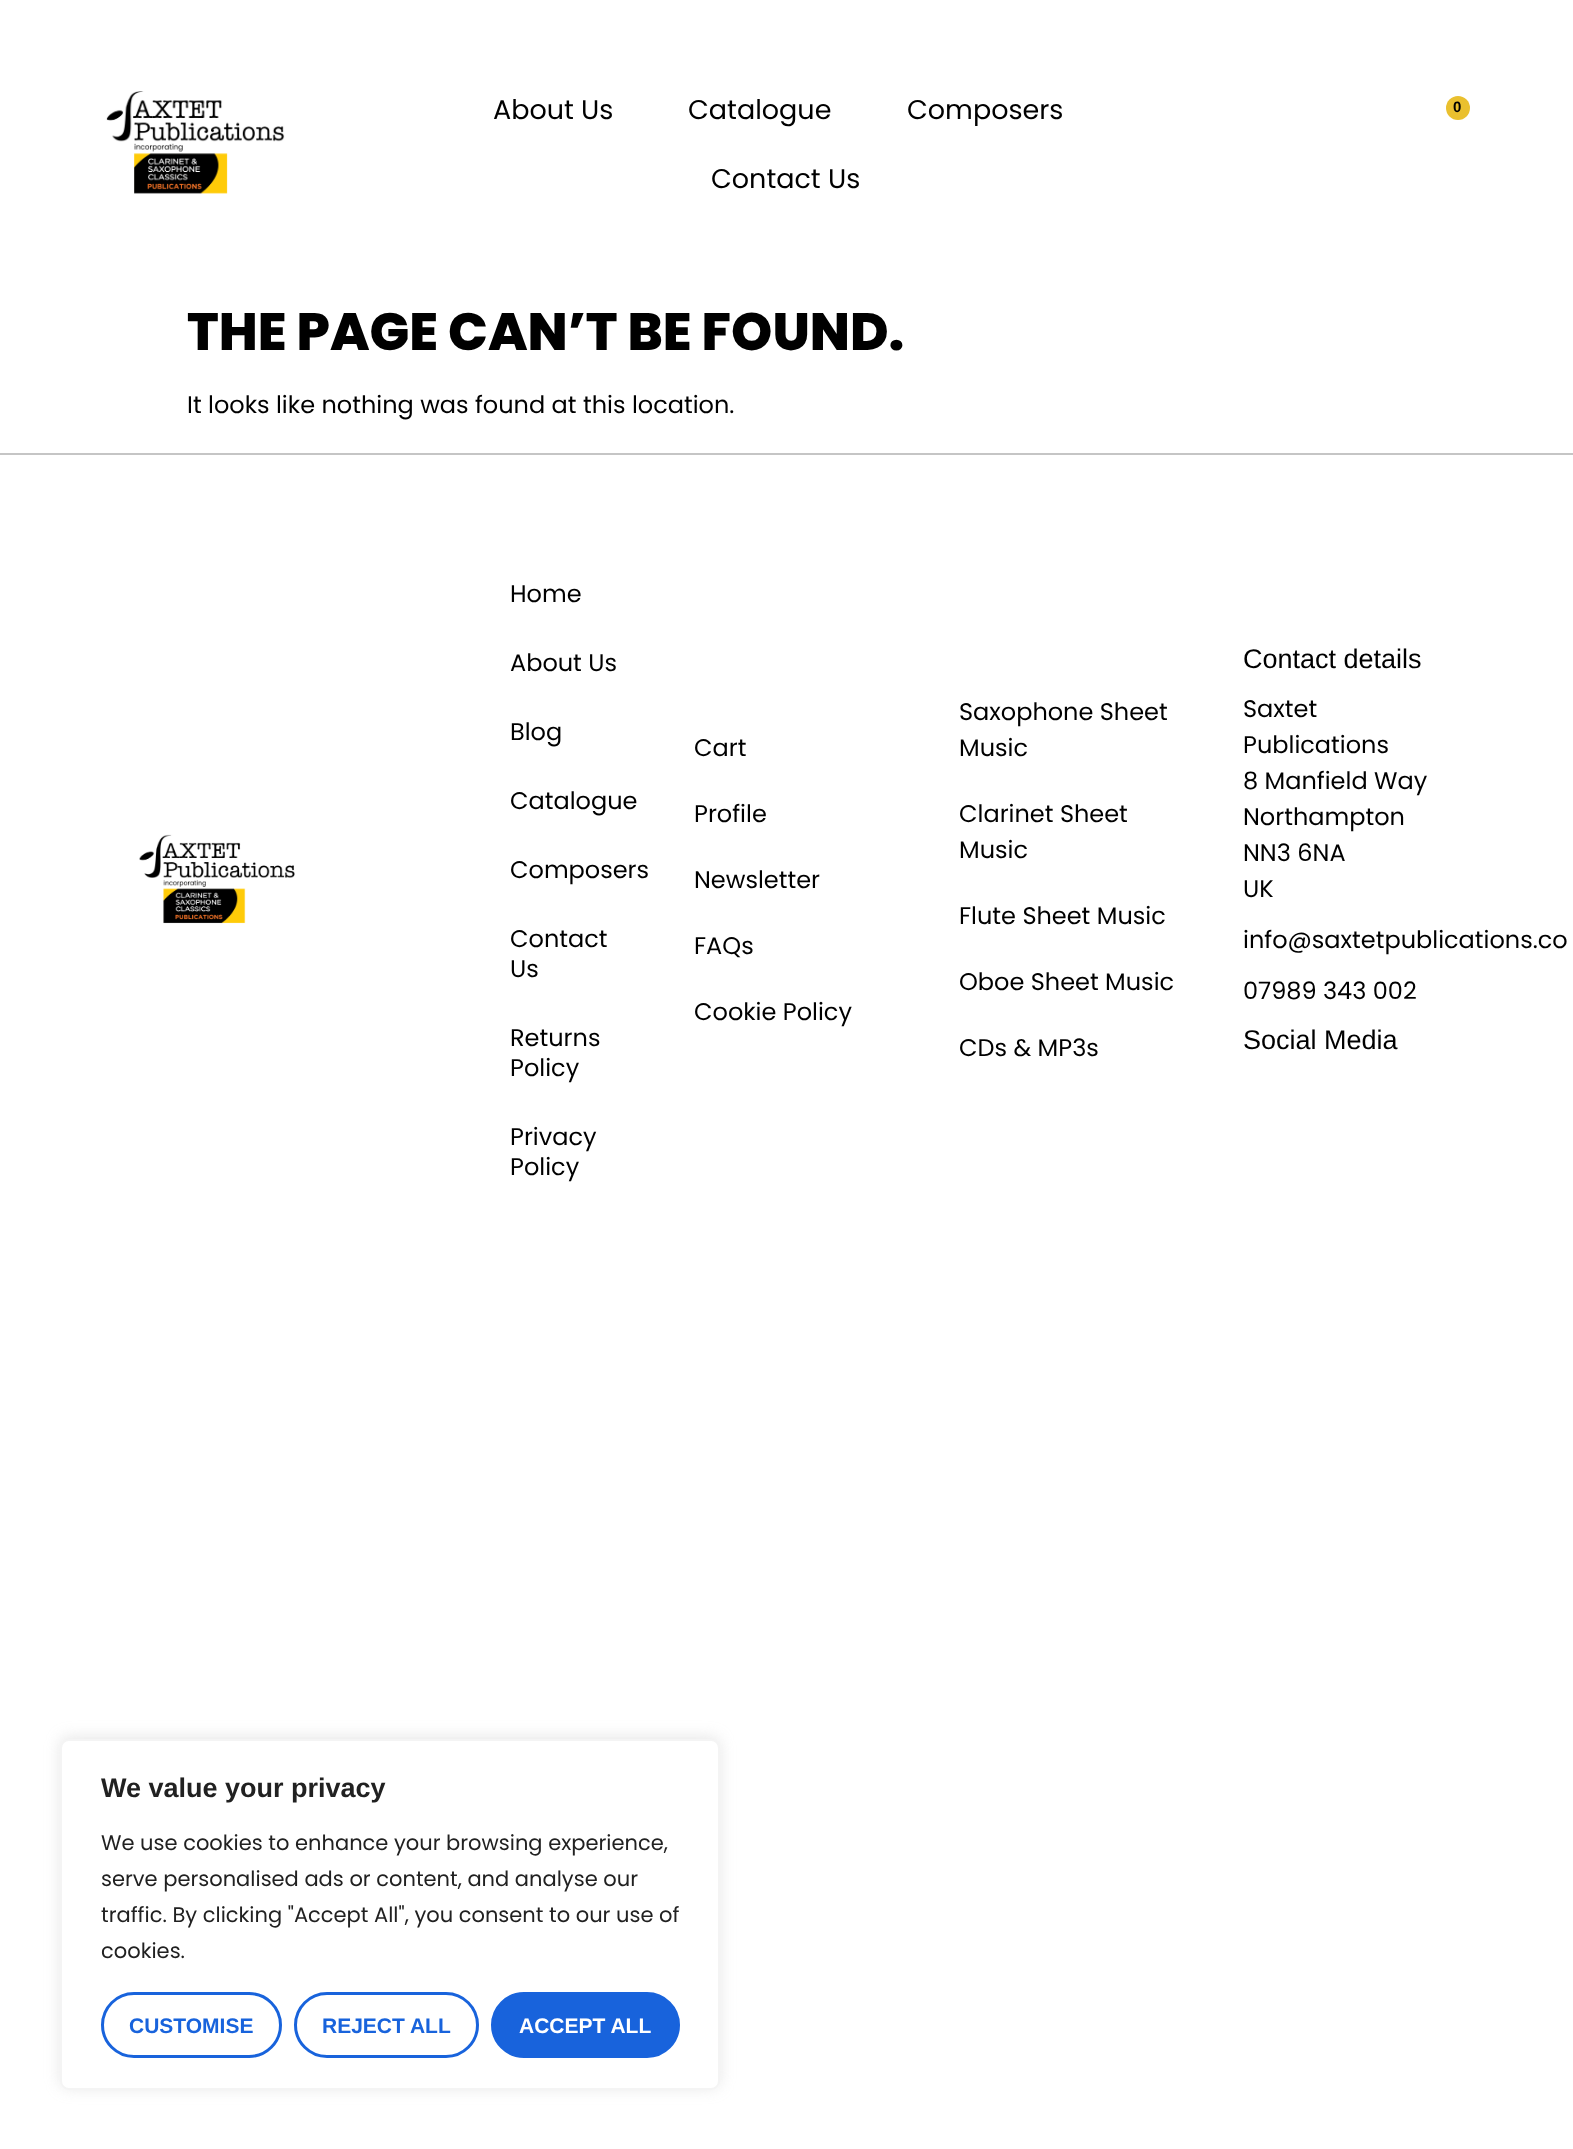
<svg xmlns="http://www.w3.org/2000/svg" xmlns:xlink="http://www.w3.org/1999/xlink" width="1573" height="2149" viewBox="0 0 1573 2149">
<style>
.cls-1{font:27px Poppins;fill:#000000}
.cls-2{font:bold 15px Liberation Sans;fill:#000000}
.cls-3{font:800 52.5px Poppins;fill:#000000}
.cls-4{font:24px Poppins;fill:#000000}
.cls-5{font:27px Liberation Sans;fill:#000000}
.cls-6{font:bold 27px Liberation Sans;fill:#212121}
.cls-7{font:21px Poppins;fill:#212121}
.cls-8{font:bold 21px Liberation Sans;fill:#1863dc}
.cls-9{font:bold 21px Liberation Sans;fill:#ffffff}
</style>
<rect width="100%" height="100%" fill="#ffffff"/>
<image xlink:href="image0.png" x="106" y="91" width="179" height="103"/>
<circle fill="#eac02e" cx="1458" cy="108" r="12"/>
<rect fill="#c5c5c5" x="0" y="453" width="1573" height="2"/>
<image xlink:href="image1.png" x="139" y="834" width="156" height="90"/>
<rect fill="#acabab" fill-opacity="0.3" filter="blur(7.5px)" x="60" y="1737" width="660" height="351" rx="9"/>
<rect fill="#ffffff" stroke="#f4f4f4" stroke-width="2" x="61" y="1740" width="658" height="349" rx="8"/>
<rect fill="none" stroke="#1863dc" stroke-width="3" x="102.5" y="1993.5" width="178" height="63" rx="31.5"/>
<rect fill="none" stroke="#1863dc" stroke-width="3" x="295.5" y="1993.5" width="182" height="63" rx="31.5"/>
<rect fill="#1863dc" stroke="#1863dc" stroke-width="3" x="492.5" y="1993.5" width="186" height="63" rx="31.5"/>
<text class="cls-1" x="493" y="119">About Us</text>
<text class="cls-1" x="688" y="119">Catalogue</text>
<text class="cls-1" x="907" y="119">Composers</text>
<text class="cls-1" x="711" y="188">Contact Us</text>
<text class="cls-2" x="1453" y="112">0</text>
<text class="cls-3" x="187" y="350">THE PAGE CAN’T BE FOUND.</text>
<text class="cls-4" x="187" y="413">It looks like nothing was found at this location.</text>
<text class="cls-4" x="510" y="602">Home</text>
<text class="cls-4" x="510" y="671">About Us</text>
<text class="cls-4" x="510" y="740">Blog</text>
<text class="cls-4" x="510" y="809">Catalogue</text>
<text class="cls-4" x="510" y="878">Composers</text>
<text class="cls-4"><tspan x="510" y="947">Contact</tspan><tspan x="510" y="977">Us</tspan></text>
<text class="cls-4"><tspan x="510" y="1046">Returns</tspan><tspan x="510" y="1076">Policy</tspan></text>
<text class="cls-4"><tspan x="510" y="1145">Privacy</tspan><tspan x="510" y="1175">Policy</tspan></text>
<text class="cls-4" x="694" y="756">Cart</text>
<text class="cls-4" x="694" y="822">Profile</text>
<text class="cls-4" x="694" y="888">Newsletter</text>
<text class="cls-4" x="694" y="954">FAQs</text>
<text class="cls-4" x="694" y="1020">Cookie Policy</text>
<text class="cls-4"><tspan x="959" y="720">Saxophone Sheet</tspan><tspan x="959" y="756">Music</tspan></text>
<text class="cls-4"><tspan x="959" y="822">Clarinet Sheet</tspan><tspan x="959" y="858">Music</tspan></text>
<text class="cls-4" x="959" y="924">Flute Sheet Music</text>
<text class="cls-4" x="959" y="990">Oboe Sheet Music</text>
<text class="cls-4" x="959" y="1056">CDs &amp; MP3s</text>
<text class="cls-5" x="1243" y="668">Contact details</text>
<text class="cls-4"><tspan x="1243" y="717">Saxtet</tspan><tspan x="1243" y="753">Publications</tspan><tspan x="1243" y="789">8 Manfield Way</tspan><tspan x="1243" y="825">Northampton</tspan><tspan x="1243" y="861">NN3 6NA</tspan><tspan x="1243" y="897">UK</tspan></text>
<text class="cls-4" x="1243" y="948">info@saxtetpublications.co</text>
<text class="cls-4" x="1243" y="999">07989 343 002</text>
<text class="cls-5" x="1243" y="1049">Social Media</text>
<text class="cls-6" x="101" y="1797">We value your privacy</text>
<text class="cls-7"><tspan x="101" y="1850">We use cookies to enhance your browsing experience,</tspan><tspan x="101" y="1886">serve personalised ads or content, and analyse our</tspan><tspan x="101" y="1922">traffic. By clicking "Accept All", you consent to our use of</tspan><tspan x="101" y="1958">cookies.</tspan></text>
<text class="cls-8" x="129" y="2033">CUSTOMISE</text>
<text class="cls-8" x="322" y="2033">REJECT ALL</text>
<text class="cls-9" x="519" y="2033">ACCEPT ALL</text>
</svg>
